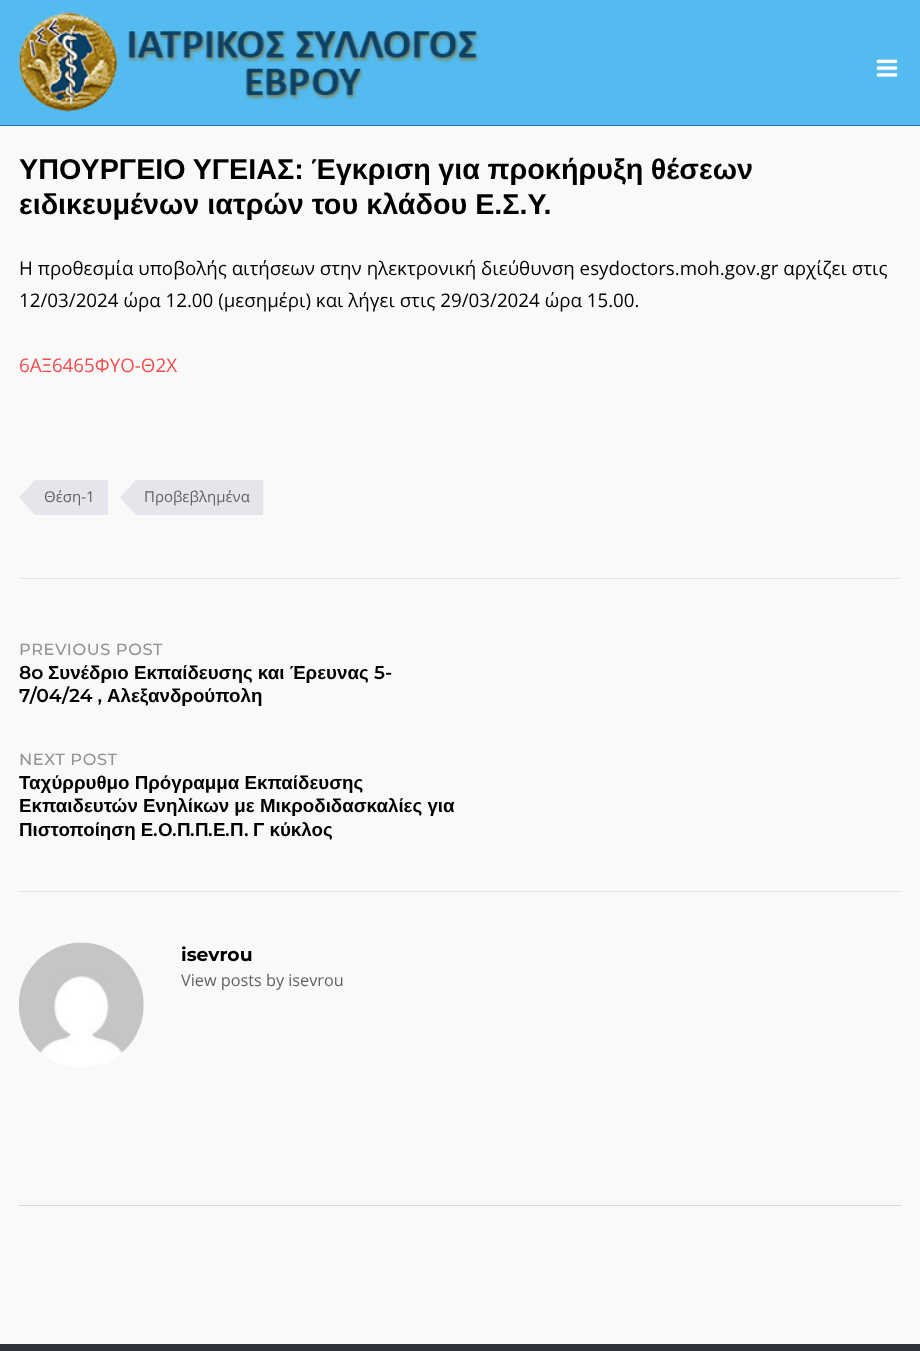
<svg xmlns="http://www.w3.org/2000/svg" xmlns:xlink="http://www.w3.org/1999/xlink" width="920" height="1351" viewBox="0 0 920 1351">
<style>
.cls-1{font:bold 28.75px Liberation Sans;fill:#000000}
.cls-2{font:18.75px Open Sans;fill:#000000}
.cls-3{font:18.75px Open Sans;fill:#f14e4e}
.cls-4{font:15px Open Sans;fill:#626262}
.cls-5{font:500 16.25px Montserrat;letter-spacing:0.6px;fill:#929292}
.cls-6{font:600 18.75px Montserrat;fill:#000000}
.cls-7{font:bold 18.75px Liberation Sans;fill:#000000}
.cls-8{font:bold 18.75px Montserrat;fill:#000000}
.cls-9{font:16.25px Open Sans;fill:#626262}
</style>
<rect width="100%" height="100%" fill="#f9f9f9"/>
<rect fill="#53bbef" x="0" y="0" width="920" height="125"/>
<rect fill="#1e73be" x="0" y="125" width="920" height="1"/>
<image xlink:href="image0.png" x="18" y="12" width="462" height="101"/>
<image xlink:href="image1.png" x="876" y="59" width="22" height="18"/>
<rect fill="#e4e6eb" x="35" y="480" width="73" height="35"/>
<path fill="#e4e6eb" d="M35 480V515L19 497.5Z"/>
<rect fill="#e4e6eb" x="136" y="480" width="127" height="35"/>
<path fill="#e4e6eb" d="M136 480V515L120 497.5Z"/>
<rect fill="#e6e6e6" x="19" y="578" width="882" height="1"/>
<rect fill="#e6e6e6" x="19" y="891" width="882" height="1"/>
<image xlink:href="image2.png" x="19" y="942" width="125" height="125"/>
<rect fill="#d6d6d6" x="19" y="1205" width="882" height="1"/>
<rect fill="#2f333b" x="0" y="1344" width="920" height="7"/>
<text class="cls-1"><tspan x="19" y="179" word-spacing="-0.5">ΥΠΟΥΡΓΕΙΟ ΥΓΕΙΑΣ: Έγκριση για προκήρυξη θέσεων</tspan><tspan x="19" y="214">ειδικευμένων ιατρών του κλάδου Ε.Σ.Υ.</tspan></text>
<text class="cls-2"><tspan x="19" y="275">Η προθεσμία υποβολής αιτήσεων στην ηλεκτρονική διεύθυνση esydoctors.moh.gov.gr αρχίζει στις</tspan><tspan x="19" y="307">12/03/2024 ώρα 12.00 (μεσημέρι) και λήγει στις 29/03/2024 ώρα 15.00.</tspan></text>
<text class="cls-3" x="19" y="372">6ΑΞ6465ΦΥΟ-Θ2Χ</text>
<text class="cls-4" x="44" y="502">Θέση-1</text>
<text class="cls-4" x="144" y="502">Προβεβλημένα</text>
<text class="cls-5" x="19" y="655">PREVIOUS POST</text>
<text class="cls-6" x="19" y="679">8o</text>
<text class="cls-7" x="48" y="679">Συνέδριο Εκπαίδευσης και Έρευνας</text>
<text class="cls-6" x="374" y="679">5-</text>
<text class="cls-6" x="19" y="702">7/04/24 ,</text>
<text class="cls-7" x="107" y="702">Αλεξανδρούπολη</text>
<text class="cls-5" x="19" y="765">NEXT POST</text>
<text class="cls-7"><tspan x="19" y="789">Ταχύρρυθμο Πρόγραμμα Εκπαίδευσης</tspan><tspan x="19" y="812">Εκπαιδευτών Ενηλίκων με Μικροδιδασκαλίες για</tspan><tspan x="19" y="836">Πιστοποίηση Ε</tspan></text>
<text class="cls-6" x="153" y="836">.</text>
<text class="cls-7" x="158" y="836">Ο</text>
<text class="cls-6" x="172" y="836">.</text>
<text class="cls-7" x="177" y="836">Π</text>
<text class="cls-6" x="190" y="836">.</text>
<text class="cls-7" x="195" y="836">Π</text>
<text class="cls-6" x="208" y="836">.</text>
<text class="cls-7" x="213" y="836">Ε</text>
<text class="cls-6" x="225" y="836">.</text>
<text class="cls-7" x="230" y="836">Π</text>
<text class="cls-6" x="244" y="836">.</text>
<text class="cls-7" x="253" y="836">Γ κύκλος</text>
<text class="cls-8" x="181" y="961">isevrou</text>
<text class="cls-9" x="181" y="986">View posts by isevrou</text>
</svg>
